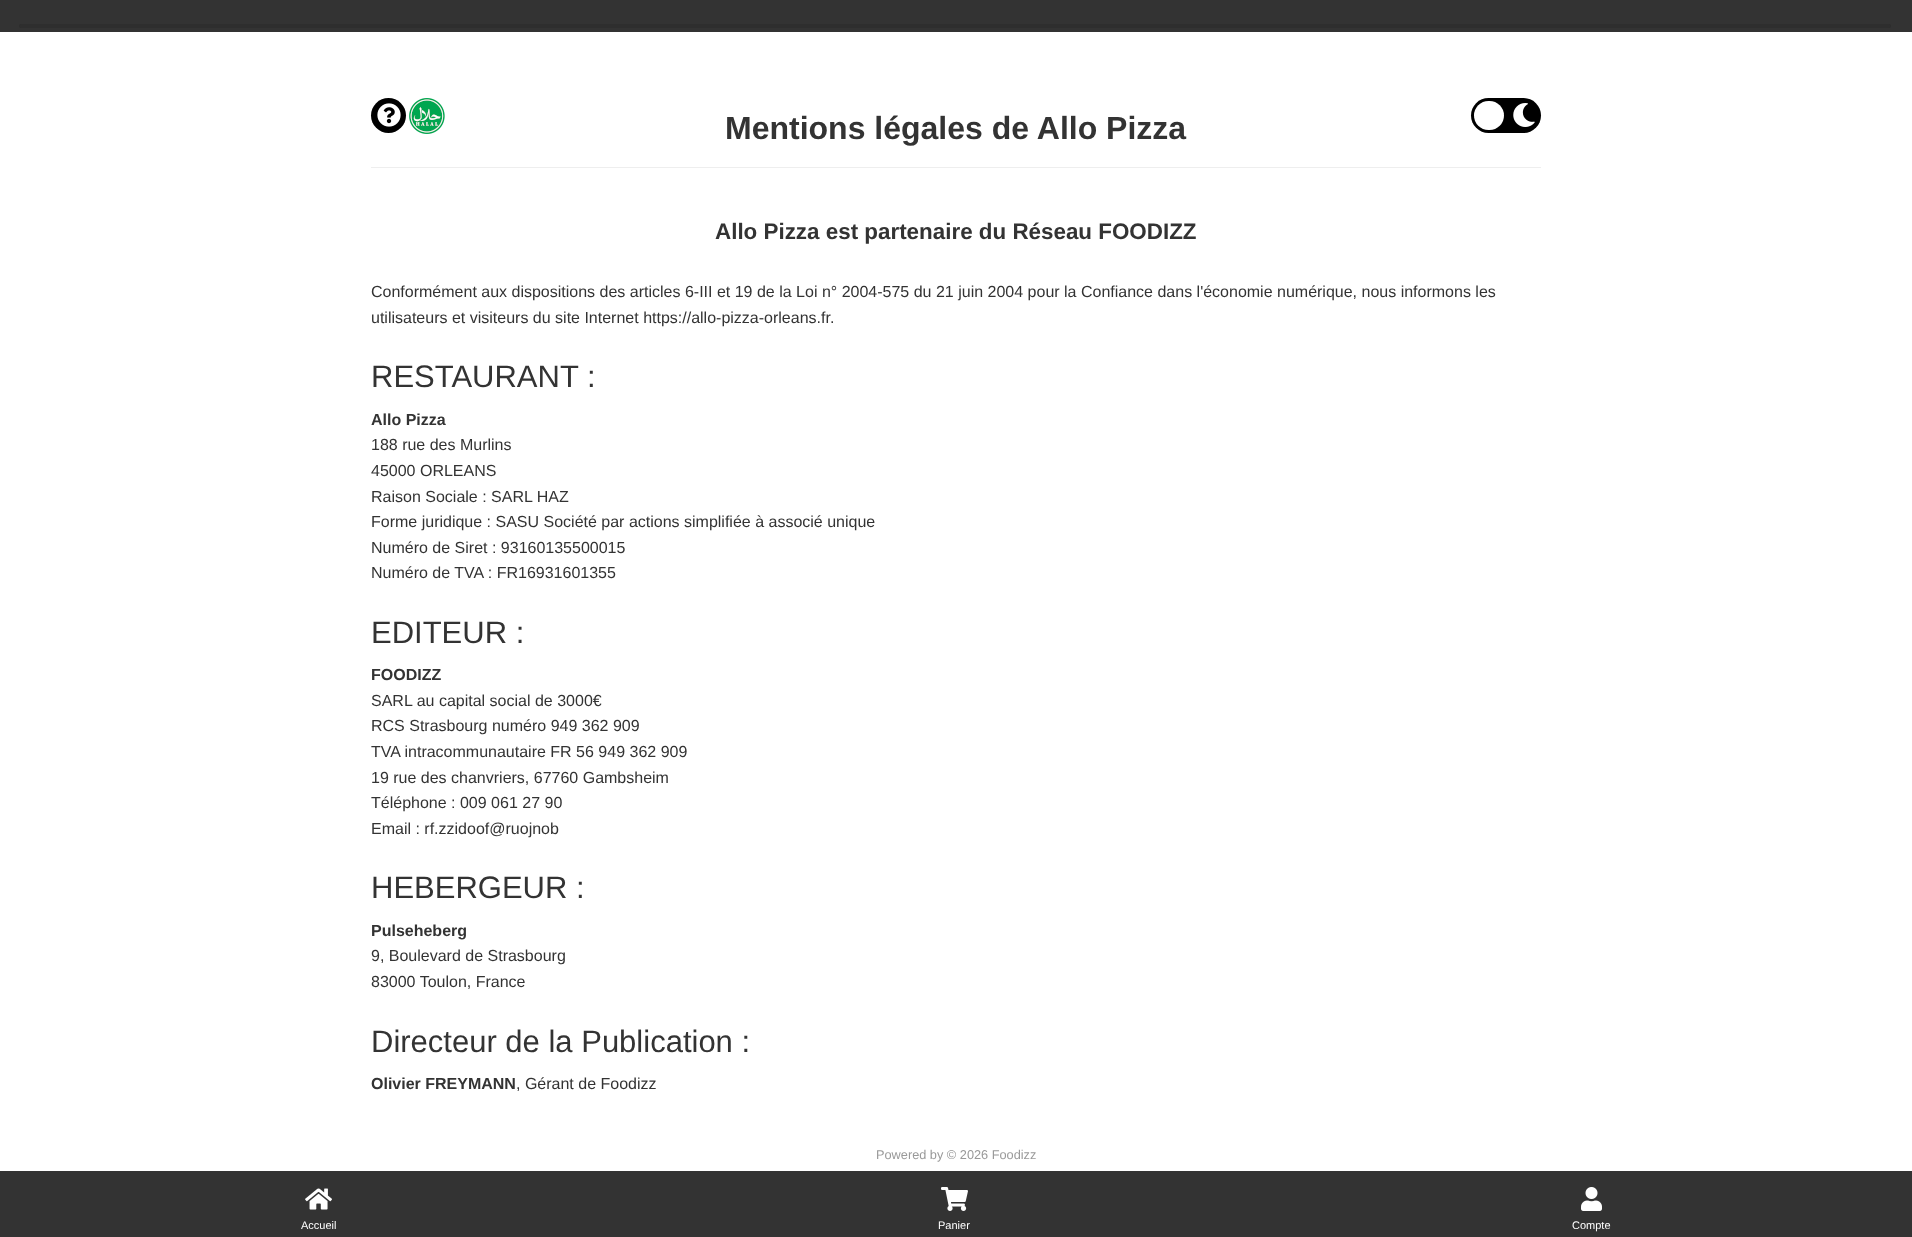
<svg xmlns="http://www.w3.org/2000/svg" xmlns:xlink="http://www.w3.org/1999/xlink" width="1912" height="1237" viewBox="0 0 1912 1237">
<style>
.cls-1{font:bold 32px Liberation Sans;fill:#333333}
.cls-2{font:bold 22.4px Liberation Sans;fill:#333333}
.cls-3{font:16px Liberation Sans;fill:#333333}
.cls-4{font:31px Liberation Sans;fill:#333333}
.cls-5{font:bold 16px Liberation Sans;fill:#333333}
.cls-6{font:12.75px Liberation Sans;fill:#999999}
.cls-7{font:11px Liberation Sans;fill:#ffffff}
</style>
<rect width="100%" height="100%" fill="#ffffff"/>
<rect fill="#333333" x="0" y="0" width="1912" height="32"/>
<rect fill="#2e2e2e" x="19" y="24" width="1872" height="4" rx="2"/>
<circle fill="#000000" cx="388.5" cy="115.5" r="17.5"/>
<image xlink:href="image0.png" x="377" y="103" width="24" height="24"/>
<image xlink:href="image1.png" x="409" y="98" width="36" height="36"/>
<rect fill="#000000" x="1471" y="98" width="70" height="35" rx="17.5"/>
<rect fill="#ffffff" x="1474" y="101" width="30" height="29" rx="14.5"/>
<image xlink:href="image2.png" x="1513" y="103" width="22" height="24"/>
<rect fill="#eeeeee" x="371" y="167" width="1170" height="1"/>
<rect fill="#333333" x="0" y="1171" width="1912" height="66"/>
<image xlink:href="image3.png" x="305" y="1188" width="27" height="22"/>
<image xlink:href="image4.png" x="941" y="1187" width="27" height="24"/>
<image xlink:href="image5.png" x="1581" y="1187" width="21" height="24"/>
<text class="cls-1" x="725" y="139">Mentions légales de Allo Pizza</text>
<text class="cls-2" x="715" y="239">Allo Pizza est partenaire du Réseau FOODIZZ</text>
<text class="cls-3"><tspan x="371" y="297">Conformément aux dispositions des articles 6-III et 19 de la Loi n° 2004-575 du 21 juin 2004 pour la Confiance dans l'économie numérique, nous informons les</tspan><tspan x="371" y="323">utilisateurs et visiteurs du site Internet https://allo-pizza-orleans.fr.</tspan></text>
<text class="cls-4" x="371" y="387">RESTAURANT :</text>
<text class="cls-5" x="371" y="425">Allo Pizza</text>
<text class="cls-3"><tspan x="371" y="450">188 rue des Murlins</tspan><tspan x="371" y="476">45000 ORLEANS</tspan><tspan x="371" y="502">Raison Sociale : SARL HAZ</tspan><tspan x="371" y="527">Forme juridique : SASU Société par actions simplifiée à associé unique</tspan><tspan x="371" y="553">Numéro de Siret : 93160135500015</tspan><tspan x="371" y="578">Numéro de TVA : FR16931601355</tspan></text>
<text class="cls-4" x="371" y="643">EDITEUR :</text>
<text class="cls-5" x="371" y="680">FOODIZZ</text>
<text class="cls-3"><tspan x="371" y="706">SARL au capital social de 3000€</tspan><tspan x="371" y="731">RCS Strasbourg numéro 949 362 909</tspan><tspan x="371" y="757">TVA intracommunautaire FR 56 949 362 909</tspan><tspan x="371" y="783">19 rue des chanvriers, 67760 Gambsheim</tspan><tspan x="371" y="808">Téléphone : 009 061 27 90</tspan><tspan x="371" y="834">Email : rf.zzidoof@ruojnob</tspan></text>
<text class="cls-4" x="371" y="898">HEBERGEUR :</text>
<text class="cls-5" x="371" y="936">Pulseheberg</text>
<text class="cls-3"><tspan x="371" y="961">9, Boulevard de Strasbourg</tspan><tspan x="371" y="987">83000 Toulon, France</tspan></text>
<text class="cls-4" x="371" y="1052">Directeur de la Publication :</text>
<text class="cls-5" x="371" y="1089">Olivier FREYMANN</text>
<text class="cls-3" x="516" y="1089">, Gérant de Foodizz</text>
<text class="cls-6" x="876" y="1159">Powered by © 2026 Foodizz</text>
<text class="cls-7" x="301" y="1229">Accueil</text>
<text class="cls-7" x="938" y="1229">Panier</text>
<text class="cls-7" x="1572" y="1229">Compte</text>
</svg>
